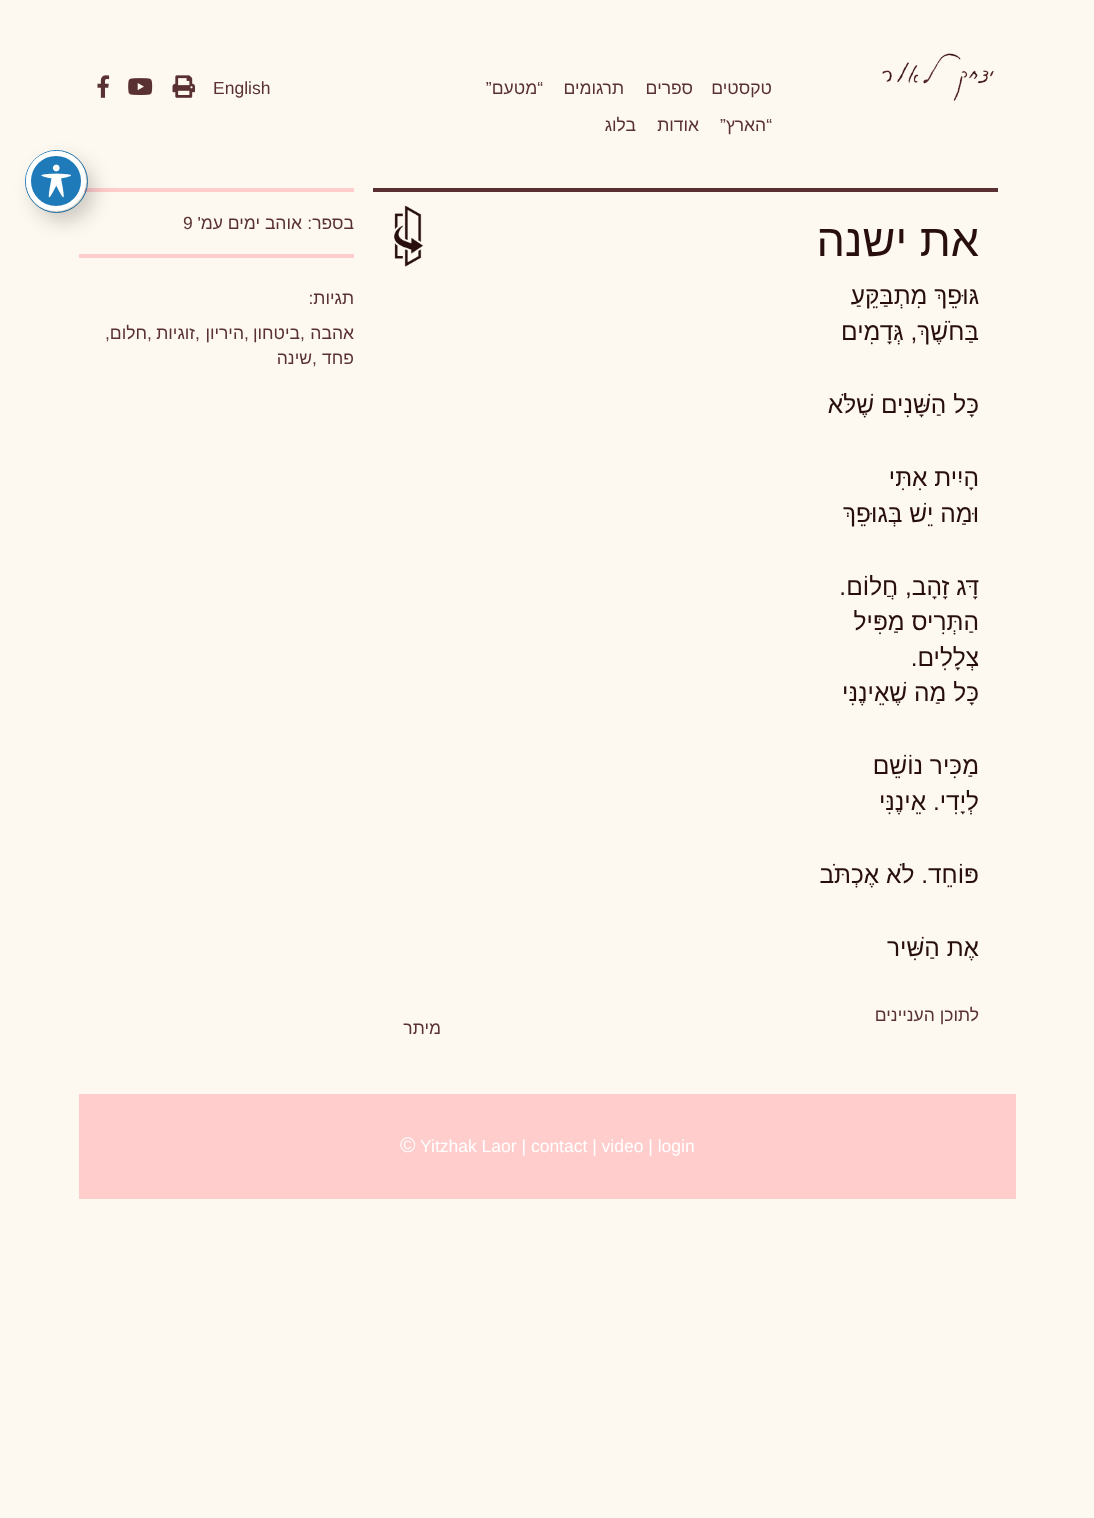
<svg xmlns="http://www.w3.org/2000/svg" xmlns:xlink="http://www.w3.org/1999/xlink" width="1094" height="1518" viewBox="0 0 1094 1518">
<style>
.cls-1{font:17.5px Liberation Sans;direction:rtl;fill:#593133}
.cls-2{font:17.5px Liberation Sans;fill:#593133}
.cls-3{font:45px Liberation Sans;direction:rtl;fill:#280e0d}
.cls-4{font:24.5px Liberation Sans;direction:rtl;fill:#280e0d}
.cls-5{font:17.5px Liberation Sans;fill:#ffffff}
.cls-6{font:21px Liberation Sans;fill:#ffffff}
</style>
<rect width="100%" height="100%" fill="#fdf9f0"/>
<image xlink:href="image0.png" x="882" y="53" width="112" height="48"/>
<image xlink:href="image1.png" x="172" y="75" width="23" height="23"/>
<image xlink:href="image2.png" x="128" y="78" width="25" height="17"/>
<image xlink:href="image3.png" x="97" y="75" width="13" height="23"/>
<rect fill="#593133" x="373" y="188" width="625" height="4"/>
<image xlink:href="image4.png" x="394" y="205" width="30" height="62"/>
<rect fill="#ffcdcc" x="79" y="188" width="275" height="4"/>
<rect fill="#ffcdcc" x="79" y="254" width="275" height="4"/>
<rect fill="#ffcdcc" x="79" y="1094" width="937" height="105"/>
<circle fill="none" stroke="#1e7ab9" cx="56.5" cy="181.5" r="31"/>
<rect fill="#000000" fill-opacity="0.2" filter="blur(10px)" x="34" y="161" width="60" height="60" rx="30"/>
<circle fill="#1e7ab9" stroke="#ffffff" stroke-width="5" cx="56" cy="181" r="27.5"/>
<image xlink:href="image5.png" x="41" y="164" width="30" height="34"/>
<text class="cls-1" x="772" y="94">טקסטים</text>
<text class="cls-1" x="693" y="94">ספרים</text>
<text class="cls-1" x="624" y="94">תרגומים</text>
<text class="cls-1" x="543" y="94">“מטעם”</text>
<text class="cls-1" x="772" y="131">“הארץ”</text>
<text class="cls-1" x="699" y="131">אודות</text>
<text class="cls-1" x="636" y="131">בלוג</text>
<text class="cls-2" x="213" y="94">English</text>
<text class="cls-3" x="979" y="256">את ישנה</text>
<text class="cls-4"><tspan x="979" y="304">גּוּפֵךְ מִתְבַּקֵּעַ</tspan><tspan x="979" y="340">בַּחֹשֶׁךְ, גְּדָמִים</tspan></text>
<text class="cls-4" x="979" y="413">כָּל הַשָּׁנִים שֶׁלֹּא</text>
<text class="cls-4"><tspan x="979" y="486">הָיִית אִתִּי</tspan><tspan x="979" y="522">וּמַה יֵשׁ בְּגוּפֵךְ</tspan></text>
<text class="cls-4"><tspan x="979" y="595">דָּג זָהָב, חֲלוֹם.</tspan><tspan x="979" y="630">הַתְּרִיס מַפִּיל</tspan><tspan x="979" y="666">צְלָלִים.</tspan><tspan x="979" y="701">כָּל מַה שֶׁאֵינֶנִּי</tspan></text>
<text class="cls-4"><tspan x="979" y="774">מַכִּיר נוֹשֵׁם</tspan><tspan x="979" y="810">לְיָדִי. אֵינֶנִּי</tspan></text>
<text class="cls-4" x="979" y="883">פּוֹחֵד. לֹא אֶכְתֹּב</text>
<text class="cls-4" x="979" y="956">אֶת הַשִּׁיר</text>
<text class="cls-1" x="979" y="1021">לתוכן העניינים</text>
<text class="cls-1" x="441" y="1034">מיתר</text>
<text class="cls-1" x="354" y="229">בספר:</text>
<text class="cls-1" x="302" y="229">אוהב ימים</text>
<text class="cls-1" x="223" y="229">עמ'</text>
<text class="cls-2" x="183" y="229">9</text>
<text class="cls-1" x="354" y="304">תגיות:</text>
<text class="cls-1" x="354" y="339">אהבה</text>
<text class="cls-1" x="300" y="339">ביטחון</text>
<text class="cls-1" x="244" y="339">היריון</text>
<text class="cls-1" x="195" y="339">זוגיות</text>
<text class="cls-1" x="147" y="339">חלום</text>
<text class="cls-2" x="300" y="339">,</text>
<text class="cls-2" x="244" y="339">,</text>
<text class="cls-2" x="195" y="339">,</text>
<text class="cls-2" x="147" y="339">,</text>
<text class="cls-2" x="105" y="339">,</text>
<text class="cls-1" x="354" y="364">פחד</text>
<text class="cls-1" x="312" y="364">שינה</text>
<text class="cls-2" x="312" y="364">,</text>
<text class="cls-5" x="420" y="1152">Yitzhak Laor | contact | video | login</text>
<text class="cls-6" x="400" y="1152">©</text>
</svg>
